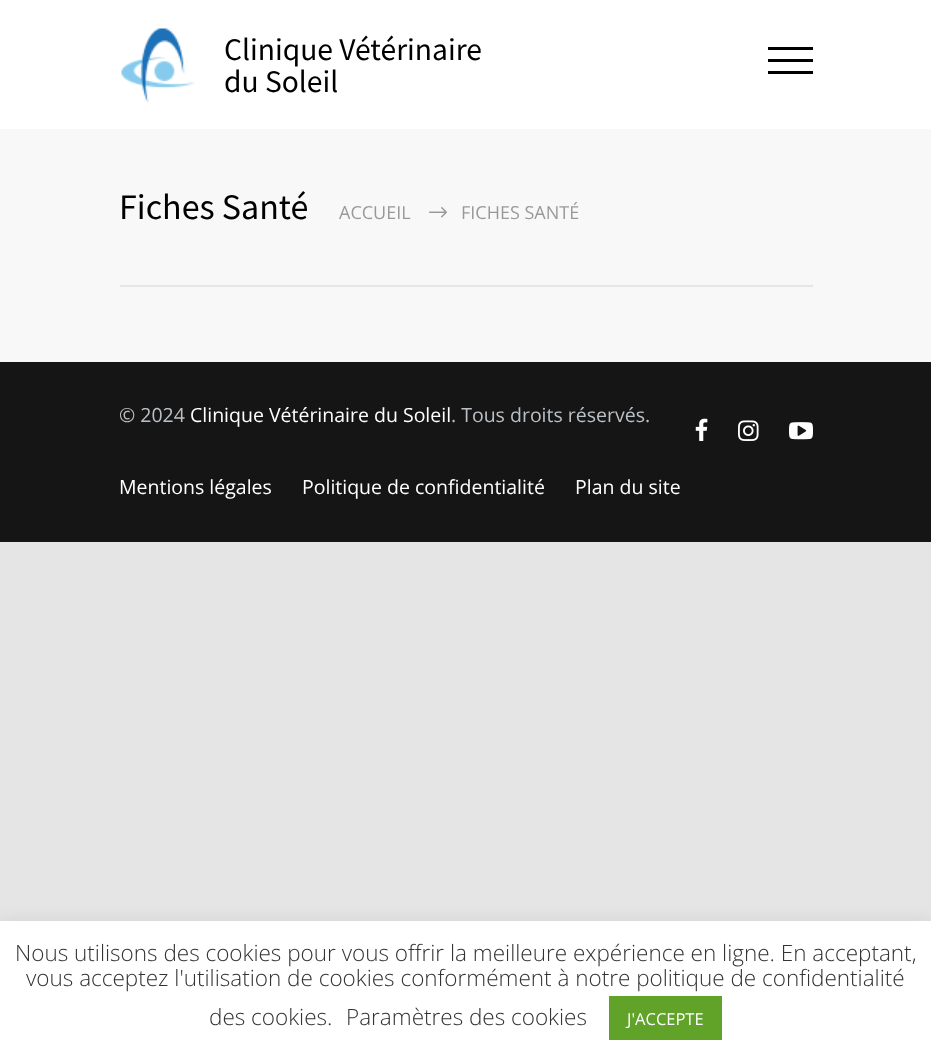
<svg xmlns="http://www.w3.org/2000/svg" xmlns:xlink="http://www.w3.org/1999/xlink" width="931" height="1057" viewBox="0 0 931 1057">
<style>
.cls-1{font:31.5px Source Sans Pro;fill:#000000}
.cls-2{font:36px Source Sans Pro;fill:#000000}
.cls-3{font:18px Open Sans;fill:#999999}
.cls-4{font:19.5px Open Sans;fill:#bac0c5}
.cls-5{font:19.5px Open Sans;fill:#ffffff}
.cls-6{font:300 22.5px Open Sans;fill:#333333}
.cls-7{font:16.5px Open Sans;fill:#ffffff}
</style>
<rect width="100%" height="100%" fill="#e5e5e5"/>
<rect fill="#f8f8f8" x="0" y="129" width="931" height="233"/>
<rect fill="#ffffff" x="0" y="0" width="931" height="129"/>
<image xlink:href="image0.png" x="121" y="28" width="74" height="74"/>
<rect fill="#000000" x="768" y="47" width="45" height="3"/>
<rect fill="#000000" x="768" y="59" width="45" height="3"/>
<rect fill="#000000" x="768" y="71" width="45" height="3"/>
<rect fill="#e5e5e5" x="120" y="285" width="693" height="2"/>
<image xlink:href="image1.png" x="429" y="207" width="18" height="11"/>
<rect fill="#151515" x="0" y="362" width="931" height="180"/>
<image xlink:href="image2.png" x="695" y="418" width="13" height="23"/>
<image xlink:href="image3.png" x="738" y="420" width="21" height="21"/>
<image xlink:href="image4.png" x="789" y="422" width="24" height="18"/>
<rect fill="#acabab" fill-opacity="0.3" filter="blur(7.5px)" x="0" y="920" width="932" height="136"/>
<rect fill="#ffffff" x="0" y="921" width="931" height="136"/>
<rect fill="#61a229" x="609" y="996" width="113" height="44"/>
<text class="cls-1"><tspan x="224" y="60">Clinique Vétérinaire</tspan><tspan x="224" y="92">du Soleil</tspan></text>
<text class="cls-2" x="119" y="219">Fiches Santé</text>
<text class="cls-3" x="339" y="219">ACCUEIL</text>
<text class="cls-3" x="461" y="219">FICHES SANTÉ</text>
<text class="cls-4" x="119" y="422">© 2024</text>
<text class="cls-5" x="190" y="422">Clinique Vétérinaire du Soleil</text>
<text class="cls-4" x="451" y="422">. Tous droits réservés.</text>
<text class="cls-5" x="119" y="494">Mentions légales</text>
<text class="cls-5" x="302" y="494">Politique de confidentialité</text>
<text class="cls-5" x="575" y="494">Plan du site</text>
<text class="cls-6" x="15" y="961">Nous utilisons des cookies pour vous offrir la meilleure expérience en ligne. En acceptant,</text>
<text class="cls-6" x="26" y="986">vous acceptez l'utilisation de cookies conformément à notre politique de confidentialité</text>
<text class="cls-6" x="209" y="1025">des cookies.</text>
<text class="cls-6" x="346" y="1025">Paramètres des cookies</text>
<text class="cls-7" x="627" y="1025">J'ACCEPTE</text>
</svg>
